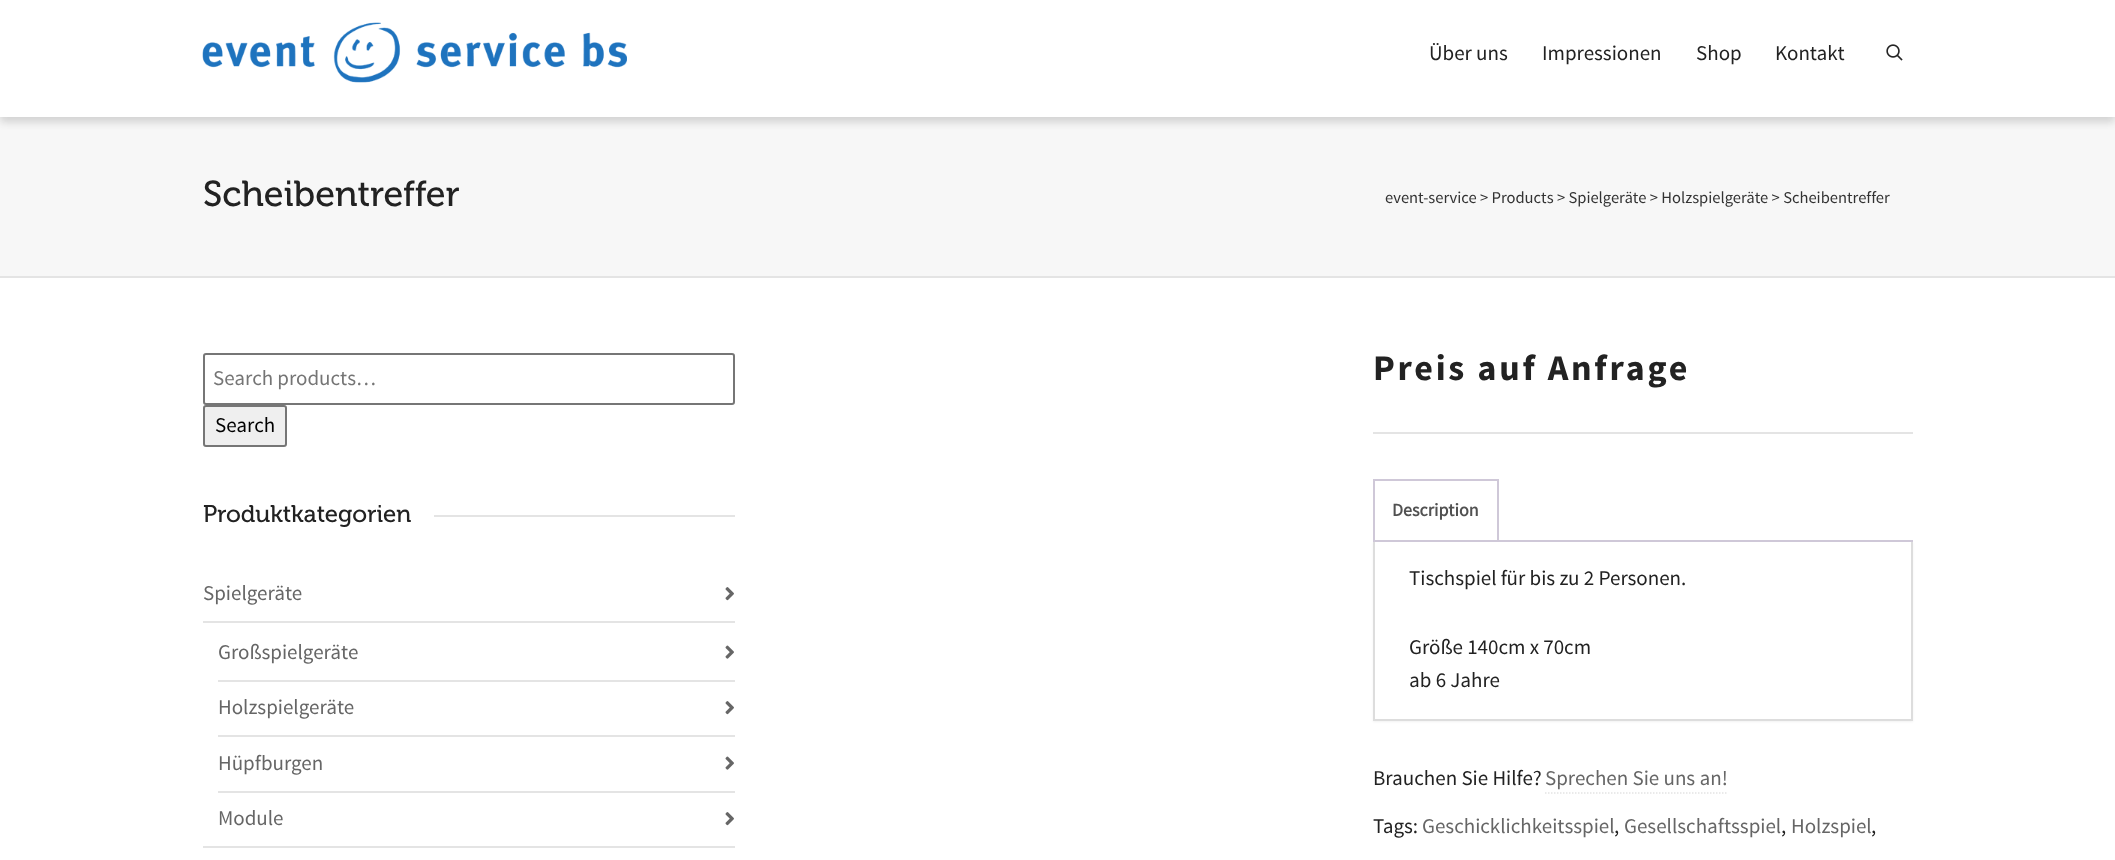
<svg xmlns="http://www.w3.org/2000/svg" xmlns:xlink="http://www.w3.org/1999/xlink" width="2115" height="860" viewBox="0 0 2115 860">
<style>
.cls-1{font:21px Source Sans Pro;fill:#222222}
.cls-2{font:36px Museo;fill:#222222}
.cls-3{font:16.5px Source Sans Pro;fill:#333333}
.cls-4{font:21px Source Sans Pro;fill:#757575}
.cls-5{font:21px Source Sans Pro;fill:#000000}
.cls-6{font:24px Museo;fill:#222222}
.cls-7{font:21px Source Sans Pro;fill:#666666}
.cls-8{font:bold 36px Source Sans Pro;letter-spacing:2.75px;fill:#222222}
.cls-9{font:bold 18px 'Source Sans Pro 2';fill:#515151}
</style>
<defs>
<clipPath id="clip1"><rect x="1373" y="479" width="540" height="63"/></clipPath>
</defs>
<rect width="100%" height="100%" fill="#ffffff"/>
<rect fill="#f7f7f7" x="0" y="117" width="2115" height="159"/>
<rect fill="#000000" fill-opacity="0.1" filter="blur(4px)" x="0" y="5" width="2115" height="117"/>
<rect fill="#000000" fill-opacity="0.05" filter="blur(4px)" x="0" y="5" width="2115" height="117"/>
<rect fill="#ffffff" x="0" y="0" width="2115" height="117"/>
<image xlink:href="image0.png" x="202" y="22" width="425" height="61"/>
<image xlink:href="image1.png" x="1886" y="44" width="17" height="17"/>
<rect fill="#e4e4e4" x="0" y="276" width="2115" height="2"/>
<rect fill="none" stroke="#767676" stroke-width="2" x="204" y="354" width="530" height="50" rx="2"/>
<rect fill="#efefef" stroke="#767676" stroke-width="2" x="204" y="406" width="82" height="40" rx="2"/>
<rect fill="#e4e4e4" x="434" y="515" width="301" height="2"/>
<image xlink:href="image2.png" x="725" y="587" width="9" height="14"/>
<rect fill="#e4e4e4" x="203" y="621" width="532" height="2"/>
<image xlink:href="image3.png" x="725" y="645" width="9" height="14"/>
<rect fill="#e4e4e4" x="218" y="680" width="517" height="2"/>
<image xlink:href="image2.png" x="725" y="701" width="9" height="14"/>
<rect fill="#e4e4e4" x="218" y="735" width="517" height="2"/>
<image xlink:href="image3.png" x="725" y="756" width="9" height="14"/>
<rect fill="#e4e4e4" x="218" y="791" width="517" height="2"/>
<image xlink:href="image2.png" x="725" y="812" width="9" height="14"/>
<rect fill="#e4e4e4" x="203" y="846" width="532" height="2"/>
<rect fill="#e4e4e4" x="1373" y="432" width="540" height="2"/>
<rect fill="#000000" fill-opacity="0.05" filter="blur(1px)" x="1373" y="543" width="540" height="179"/>
<rect fill="#ffffff" x="1375" y="542" width="536" height="177"/>
<rect fill="#dddddd" x="1911" y="542" width="2" height="178"/>
<rect fill="#dddddd" x="1373" y="719" width="540" height="2"/>
<rect fill="#dddddd" x="1373" y="542" width="2" height="178"/>
<g clip-path="url(#clip1)">
<rect fill="none" stroke="#cfc8d8" stroke-width="2" x="1374" y="480" width="124" height="64"/>
</g>
<rect fill="#cfc8d8" x="1373" y="540" width="540" height="2"/>
<path fill="none" stroke="#e4e4e4" stroke-width="1.5" stroke-dasharray="1.5 1.5" d="M1545 793H1728"/>
<text class="cls-1" x="1429" y="60">Über uns</text>
<text class="cls-1" x="1542" y="60">Impressionen</text>
<text class="cls-1" x="1696" y="60">Shop</text>
<text class="cls-1" x="1775" y="60">Kontakt</text>
<text class="cls-2" x="203" y="206">Scheibentreffer</text>
<text class="cls-3" x="1385" y="203">event-service &gt; Products &gt; Spielgeräte &gt; Holzspielgeräte &gt; Scheibentreffer</text>
<text class="cls-4" x="213" y="385">Search products…</text>
<text class="cls-5" x="215" y="432">Search</text>
<text class="cls-6" x="203" y="522">Produktkategorien</text>
<text class="cls-7" x="203" y="600">Spielgeräte</text>
<text class="cls-7" x="218" y="659">Großspielgeräte</text>
<text class="cls-7" x="218" y="714">Holzspielgeräte</text>
<text class="cls-7" x="218" y="770">Hüpfburgen</text>
<text class="cls-7" x="218" y="825">Module</text>
<text class="cls-8" x="1373" y="380">Preis auf Anfrage</text>
<text class="cls-9" x="1392" y="516">Description</text>
<text class="cls-1" x="1409" y="585">Tischspiel für bis zu 2 Personen.</text>
<text class="cls-1"><tspan x="1409" y="654">Größe 140cm x 70cm</tspan><tspan x="1409" y="687">ab 6 Jahre</tspan></text>
<text class="cls-1" x="1373" y="785">Brauchen Sie Hilfe?</text>
<text class="cls-7" x="1545" y="785">Sprechen Sie uns an!</text>
<text class="cls-1" x="1373" y="833">Tags:</text>
<text class="cls-7" x="1422" y="833">Geschicklichkeitsspiel</text>
<text class="cls-1" x="1614" y="833">,</text>
<text class="cls-7" x="1624" y="833">Gesellschaftsspiel</text>
<text class="cls-1" x="1781" y="833">,</text>
<text class="cls-7" x="1791" y="833">Holzspiel</text>
<text class="cls-1" x="1871" y="833">,</text>
</svg>
